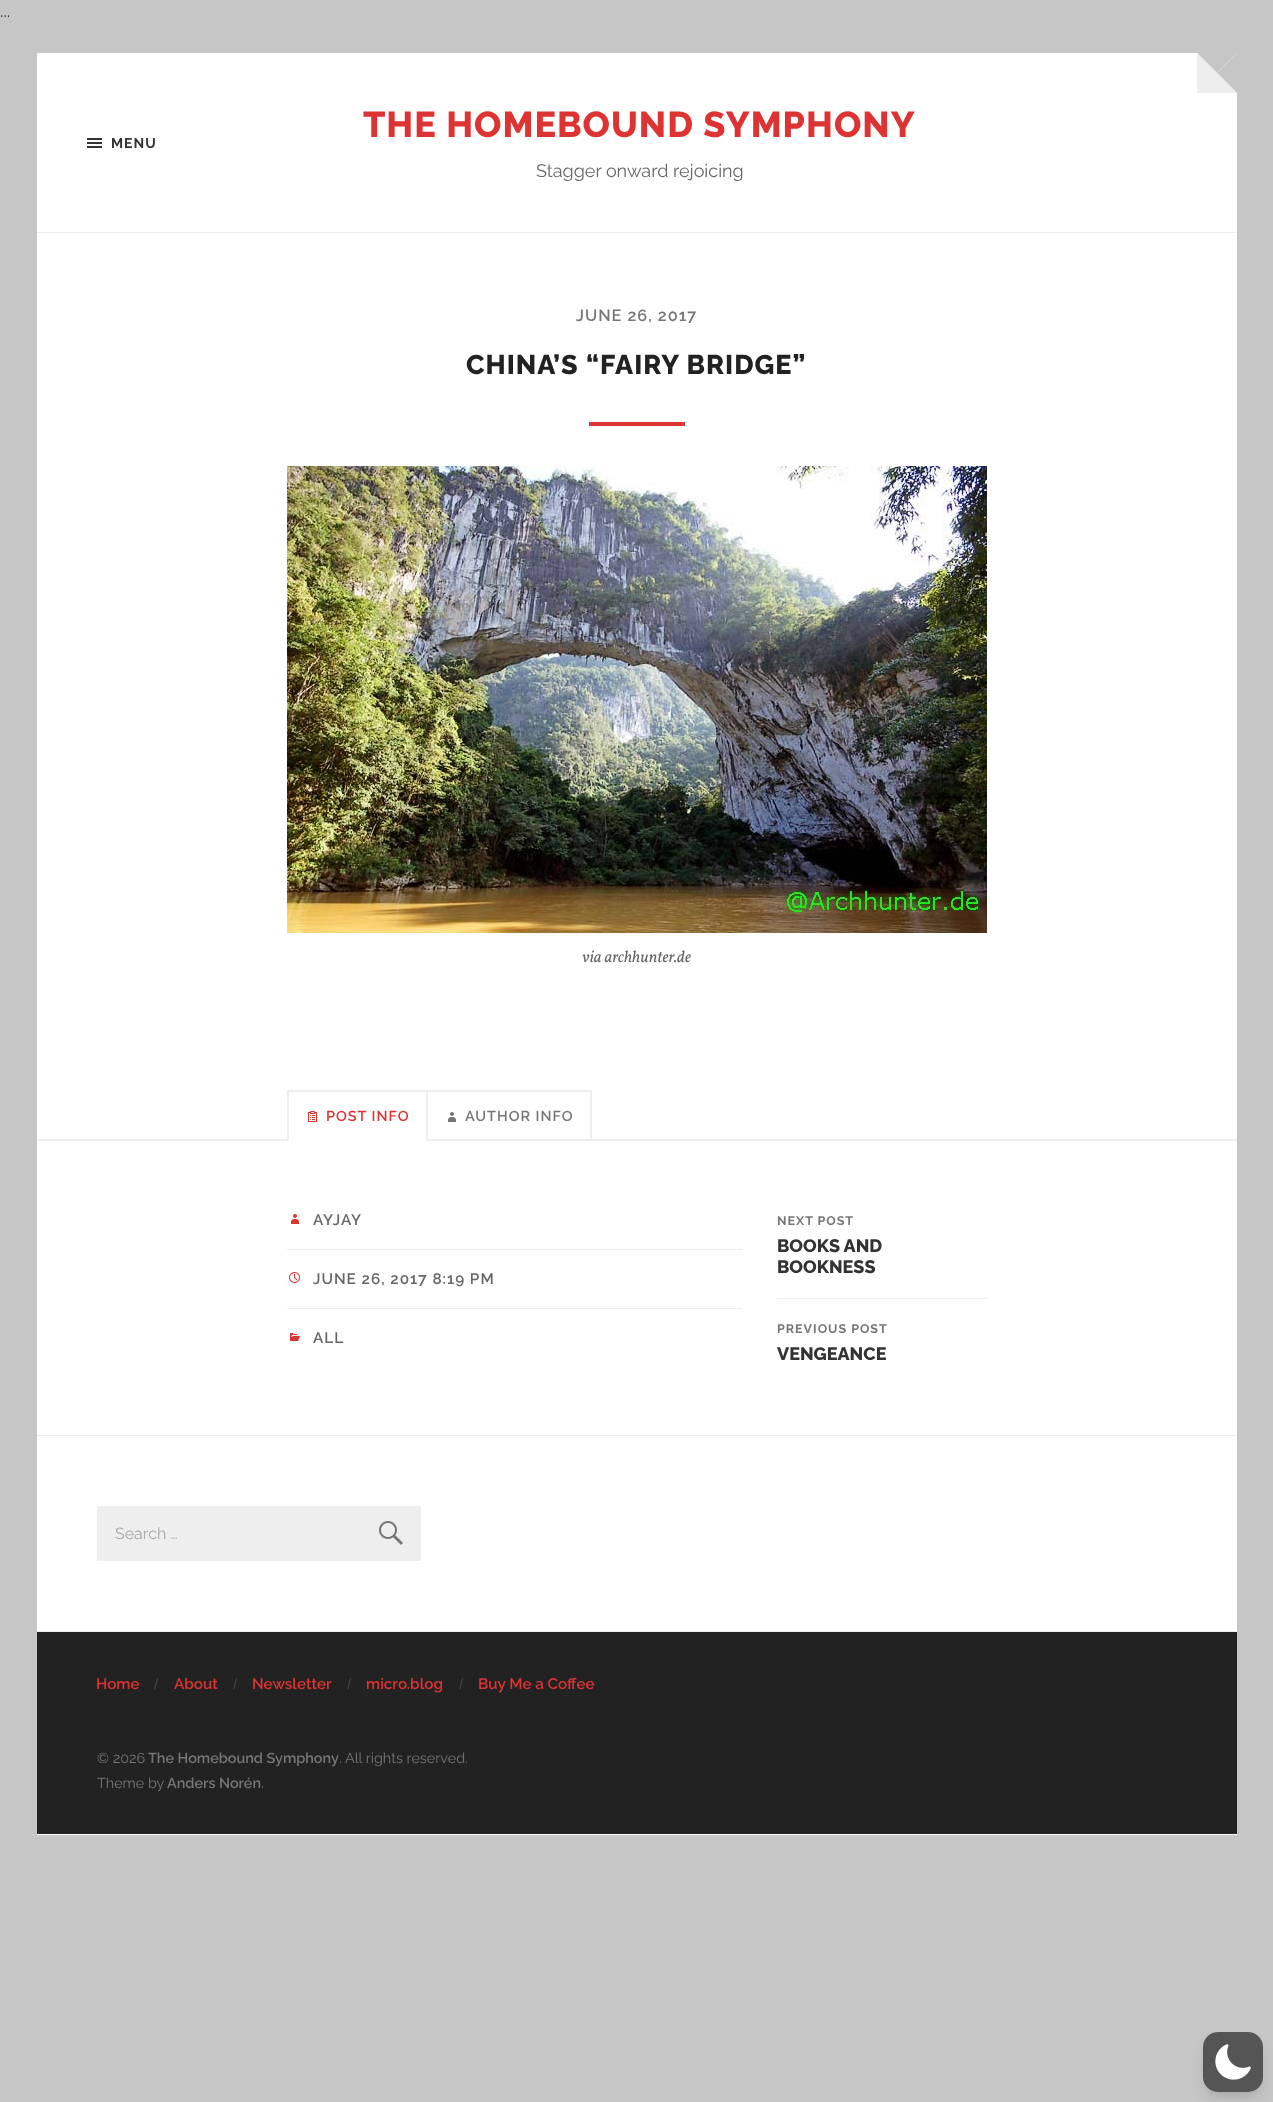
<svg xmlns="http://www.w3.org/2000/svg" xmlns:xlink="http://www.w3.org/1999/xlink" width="1273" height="2102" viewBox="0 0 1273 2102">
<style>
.cls-1{font:100 18px Raleway;fill:#333333}
.cls-2{font:100 14px 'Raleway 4';letter-spacing:1px;fill:#333333}
.cls-3{font:100 36px 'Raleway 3';letter-spacing:1px;fill:#dd3333}
.cls-4{font:100 18px Raleway;fill:#666666}
.cls-5{font:100 16.25px 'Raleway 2';letter-spacing:1px;fill:#767676}
.cls-6{font:100 27px 'Raleway 3';letter-spacing:1px;fill:#222222}
.cls-7{font:italic 16.5px Vollkorn;fill:#666666}
.cls-8{font:100 14.4px 'Raleway 2';letter-spacing:1px;fill:#dd3333}
.cls-9{font:100 14.4px 'Raleway 2';letter-spacing:1px;fill:#767676}
.cls-10{font:100 15.25px 'Raleway 2';letter-spacing:1px;fill:#666666}
.cls-11{font:100 12.5px 'Raleway 4';letter-spacing:1px;fill:#767676}
.cls-12{font:100 18px 'Raleway 3';fill:#333333}
.cls-13{font:100 16px Raleway;fill:#a9a9a9}
.cls-14{font:100 15.25px 'Raleway 2';fill:#dd3333}
.cls-15{font:15.25px Liberation Sans;fill:#444444}
.cls-16{font:100 14.4px Raleway;fill:#767676}
.cls-17{font:100 14.4px 'Raleway 2';fill:#767676}
</style>
<rect width="100%" height="100%" fill="#c6c6c6"/>
<rect fill="#ffffff" x="37" y="53" width="1200" height="1782"/>
<path fill="#c6c6c6" d="M1197 53H1237L1217 73Z"/>
<path fill="#c6c6c6" d="M1237 53V93L1217 73Z"/>
<path fill="#eeeeee" d="M1237 93H1197L1217 73Z"/>
<path fill="#eeeeee" d="M1197 93V53L1217 73Z"/>
<rect fill="#eeeeee" x="37" y="232" width="1200" height="1"/>
<rect fill="#333333" x="87" y="138" width="15" height="2"/>
<rect fill="#333333" x="87" y="142" width="15" height="2"/>
<rect fill="#333333" x="87" y="146" width="15" height="2"/>
<rect fill="#dd3333" x="589" y="422" width="96" height="4"/>
<image xlink:href="image0.png" x="287" y="466" width="700" height="467"/>
<rect fill="#eeeeee" x="37" y="1139" width="1200" height="2"/>
<rect fill="#ffffff" x="289" y="1139" width="137" height="2"/>
<rect fill="#eeeeee" x="287" y="1090" width="305" height="2"/>
<rect fill="#eeeeee" x="426" y="1090" width="2" height="51"/>
<rect fill="#eeeeee" x="287" y="1090" width="2" height="51"/>
<image xlink:href="image1.png" x="308" y="1111" width="9" height="11"/>
<rect fill="#eeeeee" x="590" y="1090" width="2" height="51"/>
<image xlink:href="image2.png" x="448" y="1112" width="8" height="10"/>
<image xlink:href="image3.png" x="291" y="1214" width="8" height="10"/>
<rect fill="#eeeeee" x="287" y="1249" width="455" height="1"/>
<image xlink:href="image4.png" x="289" y="1272" width="11" height="11"/>
<rect fill="#eeeeee" x="287" y="1308" width="455" height="1"/>
<image xlink:href="image5.png" x="290" y="1333" width="10" height="8"/>
<rect fill="#eeeeee" x="777" y="1298" width="210" height="1"/>
<rect fill="#eeeeee" x="37" y="1435" width="1200" height="1"/>
<rect fill="#eeeeee" x="97" y="1506" width="324" height="55"/>
<image xlink:href="image6.png" x="379" y="1521" width="24" height="24"/>
<rect fill="#222222" x="37" y="1632" width="1200" height="202"/>
<rect fill="#eeeeee" x="37" y="1631" width="1200" height="1"/>
<rect fill="#000000" fill-opacity="0.1" filter="blur(3px)" x="1207" y="2040" width="52" height="52" rx="11"/>
<rect fill="#000000" fill-opacity="0.1" filter="blur(7.5px)" x="1206" y="2045" width="54" height="54" rx="12"/>
<rect fill="#555555" x="1203" y="2032" width="60" height="60" rx="15"/>
<image xlink:href="image7.png" x="1215" y="2044" width="36" height="36"/>
<text class="cls-1" x="0" y="17">...</text>
<text class="cls-2" x="111" y="148">MENU</text>
<text class="cls-3" x="363" y="137">THE HOMEBOUND SYMPHONY</text>
<text class="cls-4" x="536" y="177">Stagger onward rejoicing</text>
<text class="cls-5" x="576" y="321">JUNE 26, 2017</text>
<text class="cls-6" x="466" y="374">CHINA’S “FAIRY BRIDGE”</text>
<text class="cls-7" x="582" y="962">via archhunter.de</text>
<text class="cls-8" x="326" y="1121">POST INFO</text>
<text class="cls-9" x="465" y="1121">AUTHOR INFO</text>
<text class="cls-10" x="313" y="1225">AYJAY</text>
<text class="cls-10" x="313" y="1284">JUNE 26, 2017 8:19 PM</text>
<text class="cls-10" x="313" y="1343">ALL</text>
<text class="cls-11" x="777" y="1225">NEXT POST</text>
<text class="cls-12"><tspan x="777" y="1252">BOOKS AND</tspan><tspan x="777" y="1273">BOOKNESS</tspan></text>
<text class="cls-11" x="777" y="1333">PREVIOUS POST</text>
<text class="cls-12" x="777" y="1360">VENGEANCE</text>
<text class="cls-13" x="115" y="1539">Search …</text>
<text class="cls-14" x="96" y="1689">Home</text>
<text class="cls-15" x="154" y="1689">/</text>
<text class="cls-14" x="174" y="1689">About</text>
<text class="cls-15" x="233" y="1689">/</text>
<text class="cls-14" x="252" y="1689">Newsletter</text>
<text class="cls-15" x="347" y="1689">/</text>
<text class="cls-14" x="366" y="1689">micro.blog</text>
<text class="cls-15" x="459" y="1689">/</text>
<text class="cls-14" x="478" y="1689">Buy Me a Coffee</text>
<text class="cls-16" x="97" y="1763">© 2026</text>
<text class="cls-17" x="148" y="1763">The Homebound Symphony</text>
<text class="cls-16" x="339" y="1763">. All rights reserved.</text>
<text class="cls-16" x="97" y="1788">Theme by</text>
<text class="cls-17" x="167" y="1788">Anders Norén</text>
<text class="cls-16" x="261" y="1788">.</text>
</svg>
